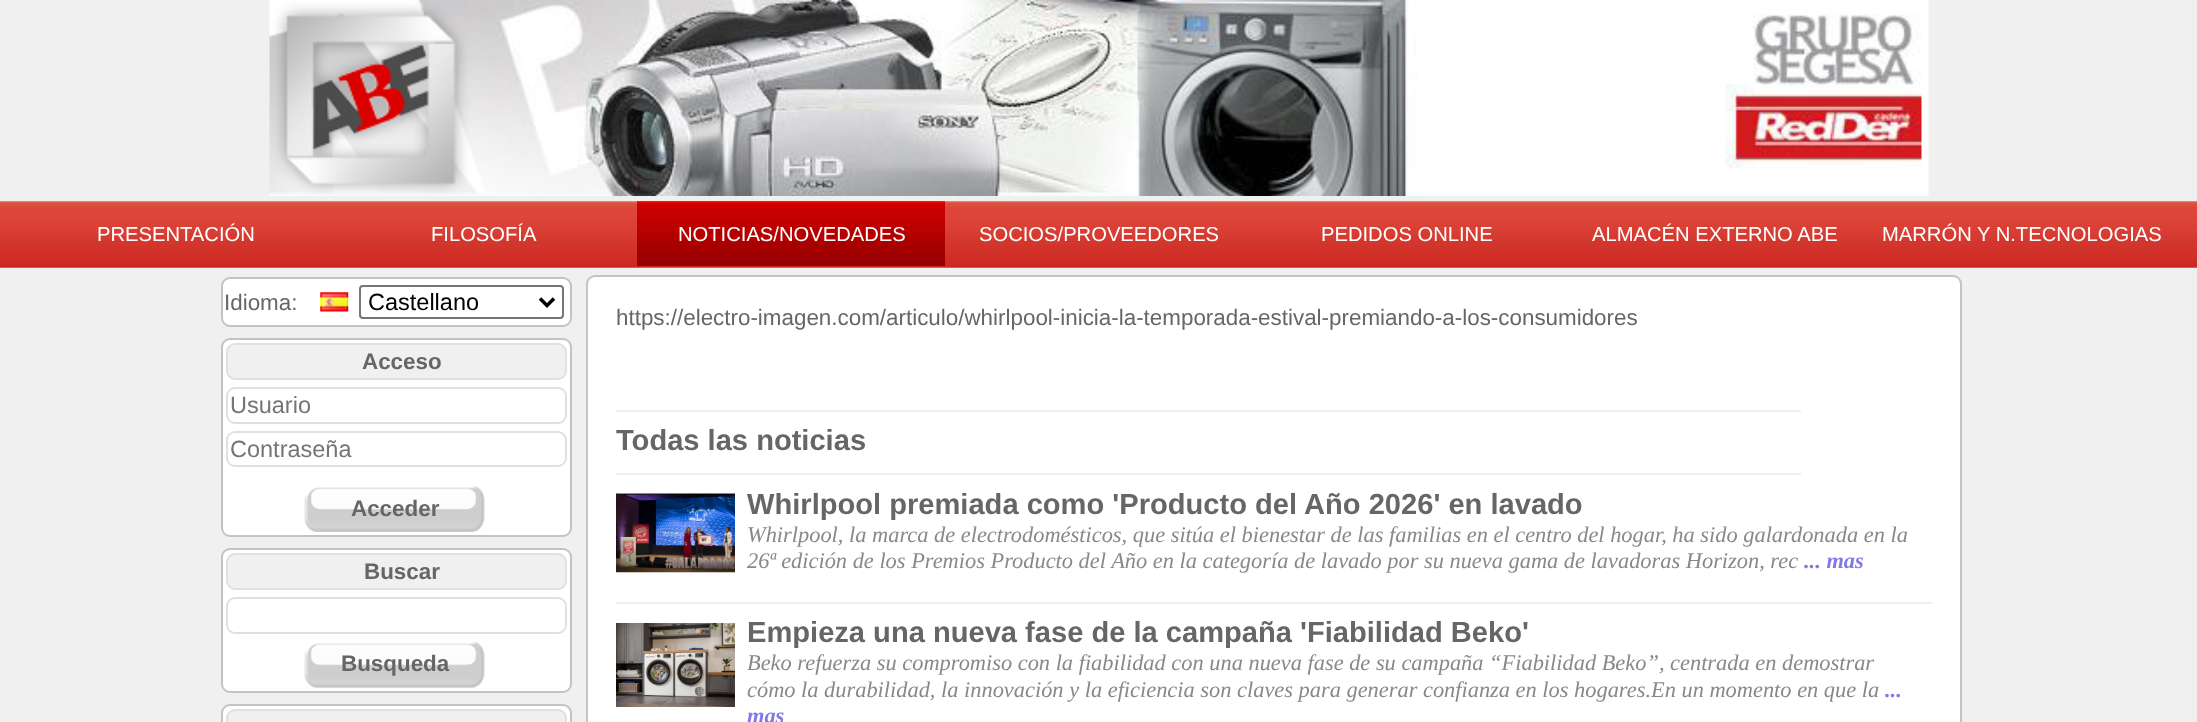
<svg xmlns="http://www.w3.org/2000/svg" xmlns:xlink="http://www.w3.org/1999/xlink" width="2197" height="722" viewBox="0 0 2197 722">
<style>
.cls-1{font:20.2px Liberation Sans;fill:#ffffff}
.cls-2{font:22.4px Liberation Sans;fill:#666666}
.cls-3{font:23.5px Liberation Sans;fill:#000000}
.cls-4{font:bold 22.4px Liberation Sans;fill:#666666}
.cls-5{font:23.5px Liberation Sans;fill:#757575}
.cls-6{font:bold 29.1px Liberation Sans;fill:#666666}
.cls-7{font:italic 22.4px Liberation Serif;fill:#888888}
.cls-8{font:italic bold 22.4px Liberation Serif;fill:#8279e4}
</style>
<rect width="100%" height="100%" fill="#f0f0f0"/>
<image xlink:href="image0.png" x="269" y="0" width="1660" height="196"/>
<image xlink:href="image1.png" x="0" y="201" width="2197" height="67"/>
<image xlink:href="image2.png" x="637" y="201" width="308" height="65"/>
<rect fill="#ffffff" stroke="#c3c3c3" stroke-width="2" x="222" y="278" width="349" height="48" rx="8"/>
<image xlink:href="image3.png" x="320" y="292" width="29" height="20"/>
<rect fill="none" stroke="#767676" stroke-width="2" x="360" y="286" width="203" height="32" rx="3"/>
<path fill="none" stroke="#000000" stroke-width="3.5" d="M540 298.5L547 305.5L554 298.5"/>
<rect fill="#ffffff" stroke="#c3c3c3" stroke-width="2" x="222" y="339" width="349" height="197" rx="8"/>
<rect fill="#f0f0f0" stroke="#e0e0e0" stroke-width="2" x="227" y="344" width="339" height="35" rx="8"/>
<rect fill="none" stroke="#e0e0e0" stroke-width="2" x="227" y="388" width="339" height="35" rx="8"/>
<rect fill="none" stroke="#e0e0e0" stroke-width="2" x="227" y="432" width="339" height="34" rx="8"/>
<image xlink:href="image4.png" x="304" y="485" width="181" height="47"/>
<rect fill="#ffffff" stroke="#c3c3c3" stroke-width="2" x="222" y="549" width="349" height="143" rx="8"/>
<rect fill="#f0f0f0" stroke="#e0e0e0" stroke-width="2" x="227" y="554" width="339" height="35" rx="8"/>
<rect fill="none" stroke="#e0e0e0" stroke-width="2" x="227" y="598" width="339" height="35" rx="8"/>
<image xlink:href="image5.png" x="304" y="641" width="181" height="47"/>
<rect fill="#ffffff" stroke="#c3c3c3" stroke-width="2" x="222" y="705" width="349" height="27" rx="8"/>
<rect fill="#f0f0f0" stroke="#e0e0e0" stroke-width="2" x="227" y="710" width="339" height="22" rx="8"/>
<rect fill="#ffffff" stroke="#c3c3c3" stroke-width="2" x="587" y="276" width="1374" height="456" rx="8"/>
<rect fill="#eeeeee" x="616" y="410" width="1185" height="2"/>
<rect fill="#eeeeee" x="616" y="473" width="1185" height="2"/>
<rect fill="#eeeeee" x="616" y="602" width="1316" height="2"/>
<image xlink:href="image6.png" x="616" y="493" width="119" height="80"/>
<image xlink:href="image7.png" x="616" y="623" width="119" height="84"/>
<text class="cls-1" x="97" y="241">PRESENTACIÓN</text>
<text class="cls-1" x="431" y="241">FILOSOFÍA</text>
<text class="cls-1" x="678" y="241">NOTICIAS/NOVEDADES</text>
<text class="cls-1" x="979" y="241">SOCIOS/PROVEEDORES</text>
<text class="cls-1" x="1321" y="241">PEDIDOS ONLINE</text>
<text class="cls-1" x="1592" y="241">ALMACÉN EXTERNO ABE</text>
<text class="cls-1" x="1882" y="241">MARRÓN Y N.TECNOLOGIAS</text>
<text class="cls-2" x="224" y="310">Idioma:</text>
<text class="cls-3" x="368" y="310">Castellano</text>
<text class="cls-4" x="362" y="369">Acceso</text>
<text class="cls-5"><tspan x="230" y="413">Usuario</tspan><tspan x="230" y="457">Contraseña</tspan></text>
<text class="cls-4" x="351" y="516">Acceder</text>
<text class="cls-4" x="364" y="579">Buscar</text>
<text class="cls-4" x="341" y="671">Busqueda</text>
<text class="cls-2" x="616" y="325">https://electro-imagen.com/articulo/whirlpool-inicia-la-temporada-estival-premiando-a-los-consumidores</text>
<text class="cls-6" x="616" y="450">Todas las noticias</text>
<text class="cls-6" x="747" y="514">Whirlpool premiada como 'Producto del Año 2026' en lavado</text>
<text class="cls-7"><tspan x="747" y="542">Whirlpool, la marca de electrodomésticos, que sitúa el bienestar de las familias en el centro del hogar, ha sido galardonada en la</tspan><tspan x="747" y="568">26ª edición de los Premios Producto del Año en la categoría de lavado por su nueva gama de lavadoras Horizon, rec</tspan></text>
<text class="cls-8" x="1804" y="568">... mas</text>
<text class="cls-6" x="747" y="642">Empieza una nueva fase de la campaña 'Fiabilidad Beko'</text>
<text class="cls-7"><tspan x="747" y="670">Beko refuerza su compromiso con la fiabilidad con una nueva fase de su campaña “Fiabilidad Beko”, centrada en demostrar</tspan><tspan x="747" y="697">cómo la durabilidad, la innovación y la eficiencia son claves para generar confianza en los hogares.En un momento en que la</tspan></text>
<text class="cls-8" x="1885" y="697">...</text>
<text class="cls-8" x="747" y="723">mas</text>
</svg>
